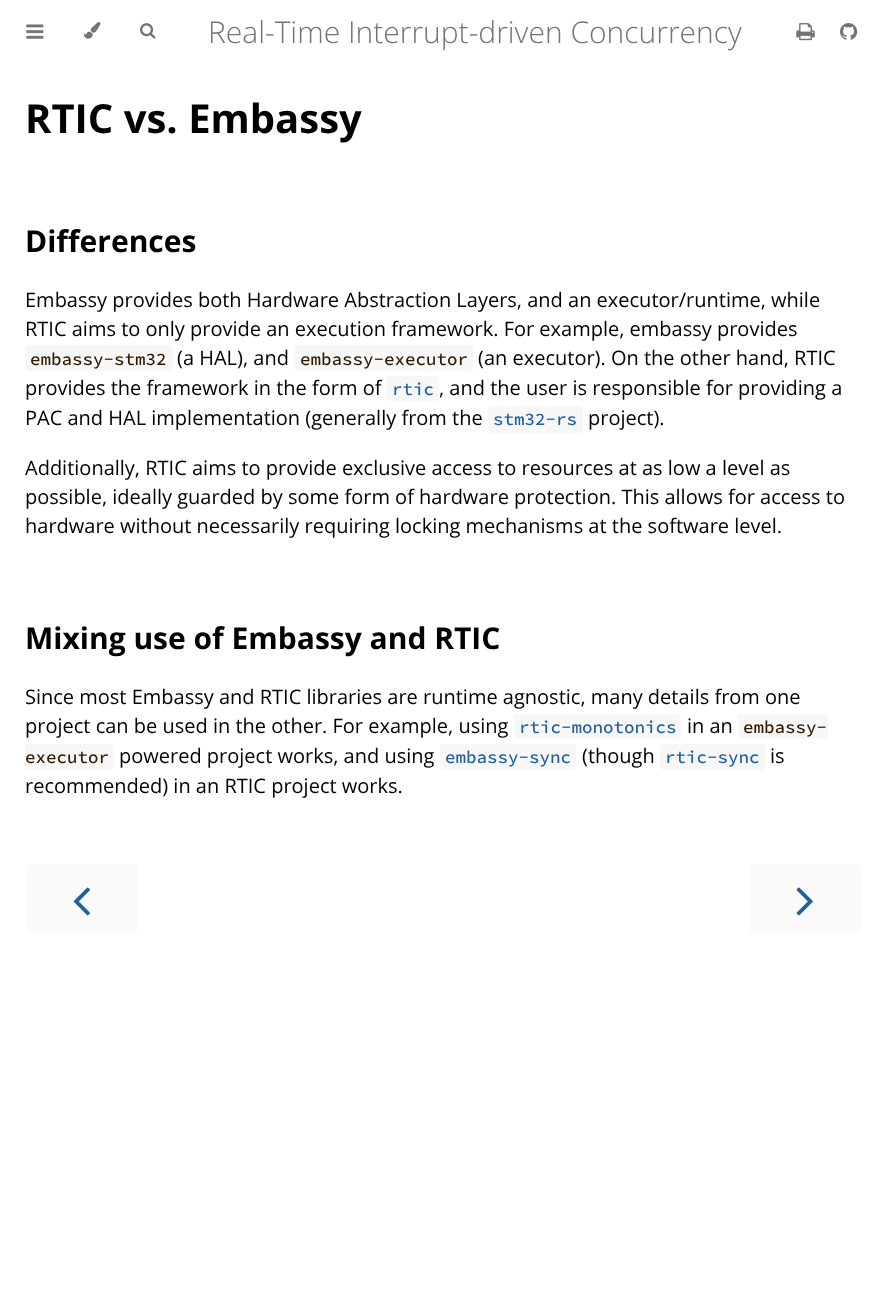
<svg xmlns="http://www.w3.org/2000/svg" xmlns:xlink="http://www.w3.org/1999/xlink" width="886" height="1313" viewBox="0 0 886 1313">
<style>
.cls-1{font:300 30px Open Sans;fill:#747474}
.cls-2{font:bold 40px Open Sans;fill:#000000}
.cls-3{font:bold 30px Open Sans;fill:#000000}
.cls-4{font:20px Open Sans;fill:#000000}
.cls-5{font:500 17.5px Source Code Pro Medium;fill:#301900}
.cls-6{font:500 17.5px Source Code Pro Medium;fill:#20609f}
</style>
<rect width="100%" height="100%" fill="#ffffff"/>
<image xlink:href="image0.png" x="26" y="24" width="18" height="15"/>
<image xlink:href="image1.png" x="83" y="22" width="18" height="17"/>
<image xlink:href="image2.png" x="140" y="23" width="16" height="16"/>
<image xlink:href="image3.png" x="796" y="23" width="19" height="18"/>
<image xlink:href="image4.png" x="840" y="23" width="18" height="17"/>
<rect fill="#f6f7f6" x="25" y="345" width="148" height="26" rx="4"/>
<rect fill="#f6f7f6" x="294" y="345" width="179" height="26" rx="4"/>
<rect fill="#f6f7f6" x="386" y="376" width="53" height="25" rx="4"/>
<rect fill="#f6f7f6" x="488" y="406" width="95" height="27" rx="4"/>
<rect fill="#f6f7f6" x="514" y="714" width="167" height="25" rx="4"/>
<path fill="#f6f7f6" d="M742 714H828V739H742C740 739 738 737 738 735V718C738 716 740 714 742 714Z"/>
<path fill="#f6f7f6" d="M25 744H110C112 744 114 746 114 748V766C114 768 112 770 110 770H25Z"/>
<rect fill="#f6f7f6" x="440" y="744" width="136" height="26" rx="4"/>
<rect fill="#f6f7f6" x="660" y="744" width="105" height="26" rx="4"/>
<rect fill="#fafafa" x="25" y="864" width="113" height="69" rx="6"/>
<image xlink:href="image5.png" x="73" y="887" width="17" height="29"/>
<rect fill="#fafafa" x="749" y="864" width="112" height="69" rx="6"/>
<image xlink:href="image6.png" x="796" y="887" width="17" height="29"/>
<text class="cls-1" x="208" y="43">Real-Time Interrupt-driven Concurrency</text>
<text class="cls-2" x="25" y="133">RTIC vs. Embassy</text>
<text class="cls-3" x="25" y="252">Differences</text>
<text class="cls-4"><tspan x="25" y="307">Embassy provides both Hardware Abstraction Layers, and an executor/runtime, while</tspan><tspan x="25" y="336">RTIC aims to only provide an execution framework. For example, embassy provides</tspan></text>
<text class="cls-5" x="30" y="365">embassy-stm32</text>
<text class="cls-4" x="177" y="365">(a HAL), and</text>
<text class="cls-5" x="300" y="365">embassy-executor</text>
<text class="cls-4" x="478" y="365">(an executor). On the other hand, RTIC</text>
<text class="cls-4" x="25" y="395">provides the framework in the form of</text>
<text class="cls-6" x="392" y="395">rtic</text>
<text class="cls-4" x="439" y="395">, and the user is responsible for providing a</text>
<text class="cls-4" x="25" y="425">PAC and HAL implementation (generally from the</text>
<text class="cls-6" x="493" y="425">stm32-rs</text>
<text class="cls-4" x="588" y="425">project).</text>
<text class="cls-4"><tspan x="25" y="475">Additionally, RTIC aims to provide exclusive access to resources at as low a level as</tspan><tspan x="25" y="504">possible, ideally guarded by some form of hardware protection. This allows for access to</tspan><tspan x="25" y="533">hardware without necessarily requiring locking mechanisms at the software level.</tspan></text>
<text class="cls-3" x="25" y="649">Mixing use of Embassy and RTIC</text>
<text class="cls-4"><tspan x="25" y="704">Since most Embassy and RTIC libraries are runtime agnostic, many details from one</tspan><tspan x="25" y="733">project can be used in the other. For example, using</tspan></text>
<text class="cls-6" x="519" y="733">rtic-monotonics</text>
<text class="cls-4" x="687" y="733">in an</text>
<text class="cls-5" x="743" y="733">embassy-</text>
<text class="cls-5" x="25" y="763">executor</text>
<text class="cls-4" x="119" y="763">powered project works, and using</text>
<text class="cls-6" x="445" y="763">embassy-sync</text>
<text class="cls-4" x="582" y="763">(though</text>
<text class="cls-6" x="665" y="763">rtic-sync</text>
<text class="cls-4" x="770" y="763">is</text>
<text class="cls-4" x="25" y="793">recommended) in an RTIC project works.</text>
</svg>
